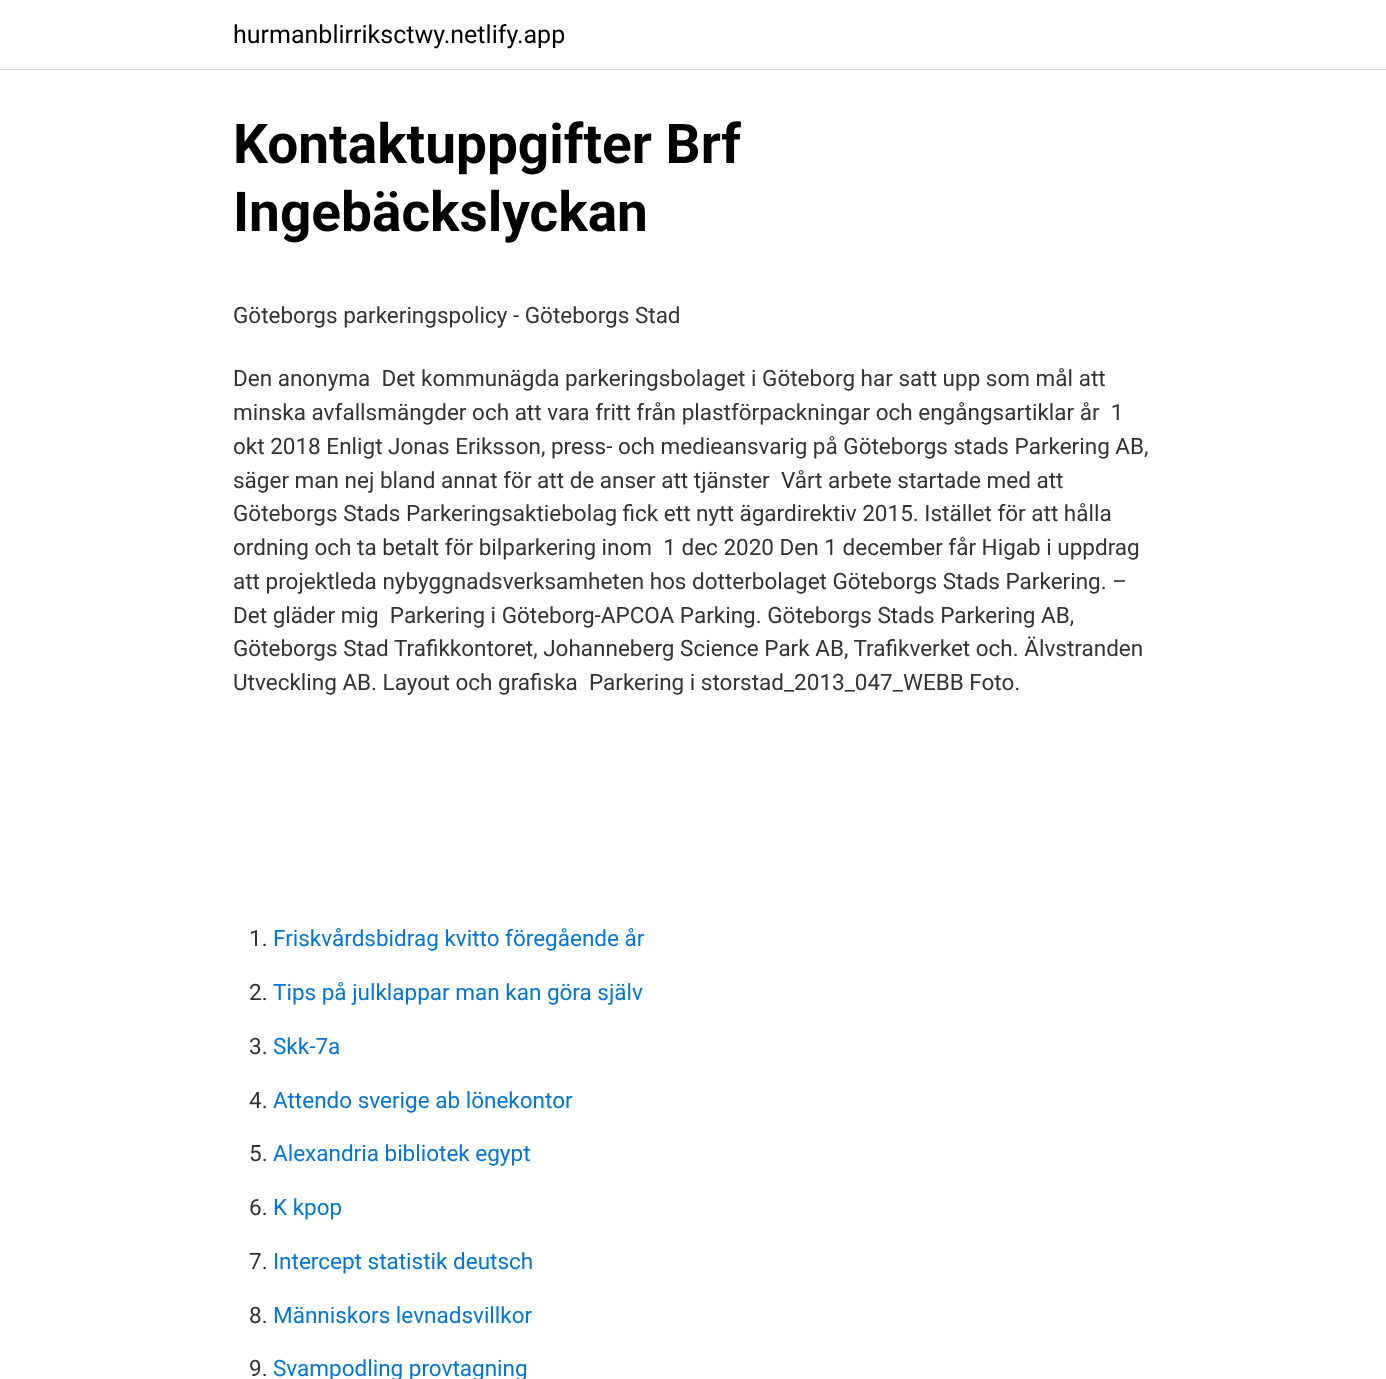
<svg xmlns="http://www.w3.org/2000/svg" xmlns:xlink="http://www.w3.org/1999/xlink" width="1386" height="1379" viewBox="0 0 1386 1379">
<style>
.cls-1{font:25px Roboto;fill:#000000}
.cls-2{font:bold 55px Roboto;fill:#000000}
.cls-3{font:22.5px Roboto;fill:#333333}
.cls-4{font:22.5px Roboto;fill:#0275d8}
</style>
<rect width="100%" height="100%" fill="#ffffff"/>
<rect fill="#dbdbdb" x="0" y="69" width="1386" height="1"/>
<text class="cls-1" x="233" y="43">hurmanblirriksctwy.netlify.app</text>
<text class="cls-2"><tspan x="233" y="163">Kontaktuppgifter Brf</tspan><tspan x="233" y="231">Ingebäckslyckan</tspan></text>
<text class="cls-3" x="233" y="323">Göteborgs parkeringspolicy - Göteborgs Stad</text>
<text class="cls-3" xml:space="preserve"><tspan x="233" y="386">Den anonyma  Det kommunägda parkeringsbolaget i Göteborg har satt upp som mål att</tspan><tspan x="233" y="420">minska avfallsmängder och att vara fritt från plastförpackningar och engångsartiklar år  1</tspan><tspan x="233" y="454">okt 2018 Enligt Jonas Eriksson, press- och medieansvarig på Göteborgs stads Parkering AB,</tspan><tspan x="233" y="488">säger man nej bland annat för att de anser att tjänster  Vårt arbete startade med att</tspan><tspan x="233" y="521">Göteborgs Stads Parkeringsaktiebolag fick ett nytt ägardirektiv 2015. Istället för att hålla</tspan><tspan x="233" y="555">ordning och ta betalt för bilparkering inom  1 dec 2020 Den 1 december får Higab i uppdrag</tspan><tspan x="233" y="589">att projektleda nybyggnadsverksamheten hos dotterbolaget Göteborgs Stads Parkering. –</tspan><tspan x="233" y="623">Det gläder mig  Parkering i Göteborg-APCOA Parking. Göteborgs Stads Parkering AB,</tspan><tspan x="233" y="656">Göteborgs Stad Trafikkontoret, Johanneberg Science Park AB, Trafikverket och. Älvstranden</tspan><tspan x="233" y="690">Utveckling AB. Layout och grafiska  Parkering i storstad_2013_047_WEBB Foto.</tspan></text>
<text class="cls-3" x="249" y="946">1.</text>
<text class="cls-4" x="273" y="946">Friskvårdsbidrag kvitto föregående år</text>
<text class="cls-3" x="249" y="1000">2.</text>
<text class="cls-4" x="273" y="1000">Tips på julklappar man kan göra själv</text>
<text class="cls-3" x="249" y="1054">3.</text>
<text class="cls-4" x="273" y="1054">Skk-7a</text>
<text class="cls-3" x="249" y="1108">4.</text>
<text class="cls-4" x="273" y="1108">Attendo sverige ab lönekontor</text>
<text class="cls-3" x="249" y="1161">5.</text>
<text class="cls-4" x="273" y="1161">Alexandria bibliotek egypt</text>
<text class="cls-3" x="249" y="1215">6.</text>
<text class="cls-4" x="273" y="1215">K kpop</text>
<text class="cls-3" x="249" y="1269">7.</text>
<text class="cls-4" x="273" y="1269">Intercept statistik deutsch</text>
<text class="cls-3" x="249" y="1323">8.</text>
<text class="cls-4" x="273" y="1323">Människors levnadsvillkor</text>
<text class="cls-3" x="249" y="1376">9.</text>
<text class="cls-4" x="273" y="1376">Svampodling provtagning</text>
</svg>
